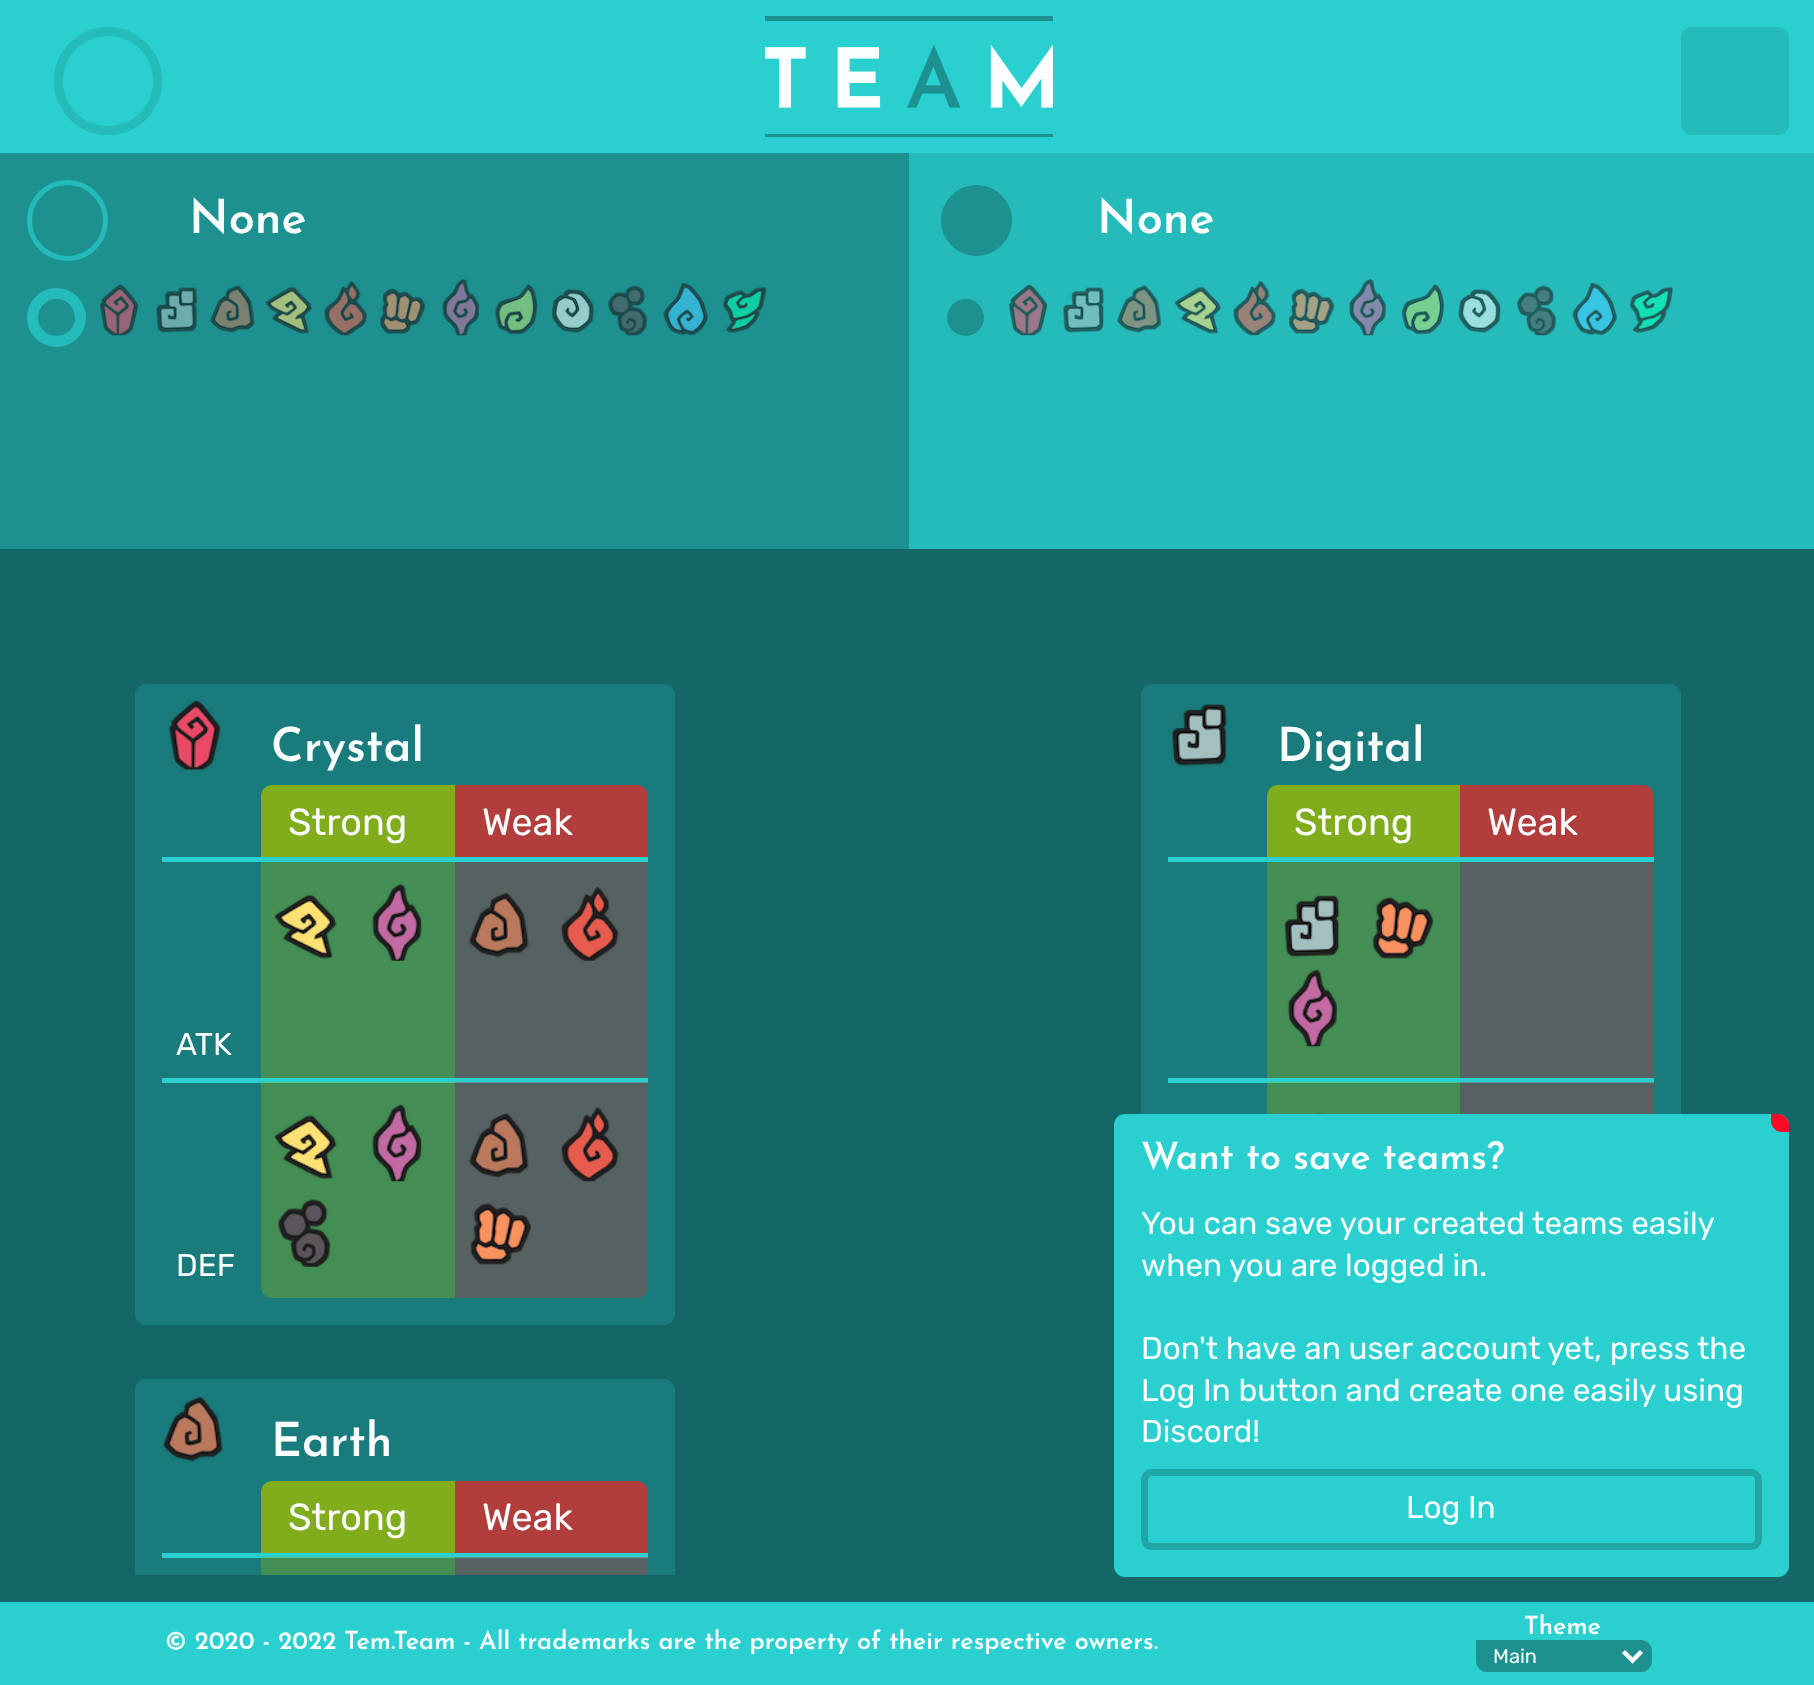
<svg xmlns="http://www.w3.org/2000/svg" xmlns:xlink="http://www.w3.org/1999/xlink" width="1814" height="1685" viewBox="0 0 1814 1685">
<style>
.cls-1{font:100 47px Josefin Sans;fill:#fbfefe}
.cls-2{font:37.75px Rubik;fill:#fbfefe}
.cls-3{font:31.5px Rubik;fill:#fbfefe}
.cls-4{font:100 37.75px Josefin Sans;fill:#fbfefe}
.cls-5{font:100 25.2px Josefin Sans;fill:#fbfefe}
.cls-6{font:20px Rubik;fill:#fbfefe}
</style>
<rect width="100%" height="100%" fill="#156666"/>
<rect fill="#2ad0d0" x="0" y="0" width="1814" height="153"/>
<circle fill="none" stroke="#26bbbb" stroke-width="9" cx="108" cy="81" r="49.5"/>
<image xlink:href="image0.png" x="765" y="16" width="288" height="121"/>
<rect fill="#26bbbb" x="1681" y="27" width="108" height="108" rx="11"/>
<rect fill="#1d9090" x="0" y="153" width="909" height="396"/>
<circle fill="none" stroke="#26bbbb" stroke-width="5" cx="67.5" cy="220.5" r="38"/>
<circle fill="none" stroke="#26bbbb" stroke-width="11" cx="56.5" cy="317.5" r="24"/>
<image xlink:href="image1.png" x="99" y="284" width="40" height="52"/>
<image xlink:href="image2.png" x="156" y="287" width="42" height="46"/>
<image xlink:href="image3.png" x="210" y="285" width="45" height="48"/>
<image xlink:href="image4.png" x="265" y="286" width="47" height="48"/>
<image xlink:href="image5.png" x="324" y="281" width="43" height="55"/>
<image xlink:href="image6.png" x="380" y="288" width="46" height="46"/>
<image xlink:href="image7.png" x="442" y="279" width="37" height="57"/>
<image xlink:href="image8.png" x="495" y="284" width="43" height="51"/>
<image xlink:href="image9.png" x="552" y="289" width="42" height="44"/>
<image xlink:href="image10.png" x="608" y="285" width="40" height="51"/>
<image xlink:href="image11.png" x="663" y="282" width="45" height="54"/>
<image xlink:href="image12.png" x="723" y="286" width="44" height="47"/>
<rect fill="#26bbbb" x="909" y="153" width="905" height="396"/>
<circle fill="#1d9090" stroke="#26bbbb" stroke-width="5" cx="976.5" cy="220.5" r="38"/>
<circle fill="#1d9090" stroke="#26bbbb" stroke-width="11" cx="965.5" cy="317.5" r="24"/>
<image xlink:href="image13.png" x="1008" y="284" width="40" height="52"/>
<image xlink:href="image14.png" x="1062" y="287" width="42" height="46"/>
<image xlink:href="image15.png" x="1117" y="285" width="45" height="48"/>
<image xlink:href="image16.png" x="1174" y="286" width="47" height="48"/>
<image xlink:href="image17.png" x="1233" y="280" width="43" height="56"/>
<image xlink:href="image18.png" x="1289" y="288" width="46" height="46"/>
<image xlink:href="image19.png" x="1349" y="279" width="37" height="57"/>
<image xlink:href="image20.png" x="1401" y="283" width="44" height="52"/>
<image xlink:href="image21.png" x="1458" y="289" width="43" height="44"/>
<image xlink:href="image22.png" x="1517" y="285" width="40" height="51"/>
<image xlink:href="image23.png" x="1572" y="282" width="45" height="54"/>
<image xlink:href="image24.png" x="1629" y="286" width="44" height="47"/>
<rect fill="#197b7b" x="135" y="684" width="540" height="641" rx="11"/>
<image xlink:href="image25.png" x="168" y="700" width="53" height="70"/>
<rect fill="#2ad0d0" x="162" y="857" width="486" height="5"/>
<path fill="#81ad1d" d="M272 785H455V857H261V796C261 790 266 785 272 785Z"/>
<path fill="#b13d3d" d="M455 785H637C643 785 648 790 648 796V857H455Z"/>
<rect fill="#2ad0d0" x="162" y="1078" width="486" height="5"/>
<rect fill="#438f55" x="261" y="862" width="194" height="216"/>
<image xlink:href="image26.png" x="274" y="894" width="63" height="65"/>
<image xlink:href="image27.png" x="372" y="884" width="50" height="77"/>
<rect fill="#566262" x="455" y="862" width="193" height="216"/>
<image xlink:href="image28.png" x="469" y="892" width="60" height="66"/>
<image xlink:href="image29.png" x="561" y="886" width="58" height="75"/>
<path fill="#81ad1d" fill-opacity="0.4" d="M261 1082H455V1298H272C266 1298 261 1293 261 1287Z"/>
<image xlink:href="image30.png" x="274" y="1115" width="63" height="64"/>
<image xlink:href="image31.png" x="372" y="1104" width="50" height="78"/>
<image xlink:href="image32.png" x="278" y="1199" width="53" height="68"/>
<path fill="#b13d3d" fill-opacity="0.4" d="M455 1082H648V1287C648 1293 643 1298 637 1298H455Z"/>
<image xlink:href="image33.png" x="469" y="1113" width="60" height="65"/>
<image xlink:href="image34.png" x="561" y="1107" width="58" height="75"/>
<image xlink:href="image35.png" x="470" y="1203" width="61" height="62"/>
<rect fill="#197b7b" x="1141" y="684" width="540" height="641" rx="11"/>
<image xlink:href="image36.png" x="1171" y="704" width="56" height="62"/>
<rect fill="#2ad0d0" x="1168" y="857" width="486" height="5"/>
<path fill="#81ad1d" d="M1278 785H1460V857H1267V796C1267 790 1272 785 1278 785Z"/>
<path fill="#b13d3d" d="M1460 785H1643C1649 785 1654 790 1654 796V857H1460Z"/>
<rect fill="#2ad0d0" x="1168" y="1078" width="486" height="5"/>
<rect fill="#438f55" x="1267" y="862" width="193" height="216"/>
<image xlink:href="image37.png" x="1284" y="895" width="56" height="63"/>
<image xlink:href="image38.png" x="1372" y="897" width="62" height="62"/>
<image xlink:href="image39.png" x="1287" y="969" width="51" height="78"/>
<rect fill="#566262" x="1460" y="862" width="194" height="216"/>
<rect fill="#81ad1d" fill-opacity="0.4" x="1267" y="1082" width="193" height="32"/>
<image xlink:href="image40.png" x="1315" y="1113" width="8" height="1"/>
<rect fill="#b13d3d" fill-opacity="0.4" x="1460" y="1082" width="194" height="32"/>
<path fill="#197b7b" d="M146 1379H664C670 1379 675 1384 675 1390V1575H135V1390C135 1384 140 1379 146 1379Z"/>
<rect fill="#566262" x="455" y="1558" width="193" height="17"/>
<rect fill="#438f55" x="261" y="1558" width="194" height="17"/>
<image xlink:href="image41.png" x="163" y="1396" width="60" height="66"/>
<rect fill="#2ad0d0" x="162" y="1553" width="486" height="5"/>
<rect fill="#609595" x="455" y="1557" width="193" height="1"/>
<rect fill="#4dc288" x="261" y="1557" width="194" height="1"/>
<path fill="#81ad1d" d="M272 1481H455V1553H261V1492C261 1486 266 1481 272 1481Z"/>
<path fill="#b13d3d" d="M455 1481H637C643 1481 648 1486 648 1492V1553H455Z"/>
<rect fill="#2ad0d0" x="1114" y="1114" width="675" height="463" rx="11"/>
<path fill="#fc0928" d="M1771 1114H1778C1784 1114 1789 1119 1789 1125V1132H1782C1776 1132 1771 1127 1771 1121Z"/>
<rect fill="none" stroke="#21a6a6" stroke-width="7" x="1144.5" y="1472.5" width="614" height="74" rx="7.5"/>
<rect fill="#2ad0d0" x="0" y="1602" width="1814" height="83"/>
<path fill="#1d9090" d="M1476 1640H1641C1647 1640 1652 1645 1652 1651V1661C1652 1667 1647 1672 1641 1672H1487C1481 1672 1476 1667 1476 1661Z"/>
<path fill="none" stroke="#fbfefe" stroke-width="4.5" d="M1623.5 1651.5L1632.5 1660.5L1641.5 1651.5"/>
<text class="cls-1" x="189" y="233">None</text>
<text class="cls-1" x="1097" y="233">None</text>
<text class="cls-1" x="271" y="761">Crystal</text>
<text class="cls-2" x="288" y="835">Strong</text>
<text class="cls-2" x="482" y="835">Weak</text>
<text class="cls-3" x="176" y="1055">ATK</text>
<text class="cls-3" x="176" y="1276">DEF</text>
<text class="cls-1" x="1277" y="761">Digital</text>
<text class="cls-2" x="1294" y="835">Strong</text>
<text class="cls-2" x="1487" y="835">Weak</text>
<text class="cls-1" x="271" y="1456">Earth</text>
<text class="cls-2" x="288" y="1530">Strong</text>
<text class="cls-2" x="482" y="1530">Weak</text>
<text class="cls-4" x="1141" y="1169">Want to save teams?</text>
<text class="cls-3"><tspan x="1141" y="1234">You can save your created teams easily</tspan><tspan x="1141" y="1276">when you are logged in.</tspan></text>
<text class="cls-3"><tspan x="1141" y="1359">Don't have an user account yet, press the</tspan><tspan x="1141" y="1401">Log In button and create one easily using</tspan><tspan x="1141" y="1442">Discord!</tspan></text>
<text class="cls-3" x="1406" y="1518">Log In</text>
<text class="cls-5" x="165" y="1649">© 2020 - 2022 Tem.Team - All trademarks are the property of their respective owners.</text>
<text class="cls-5" x="1524" y="1634">Theme</text>
<text class="cls-6" x="1493" y="1663">Main</text>
</svg>
